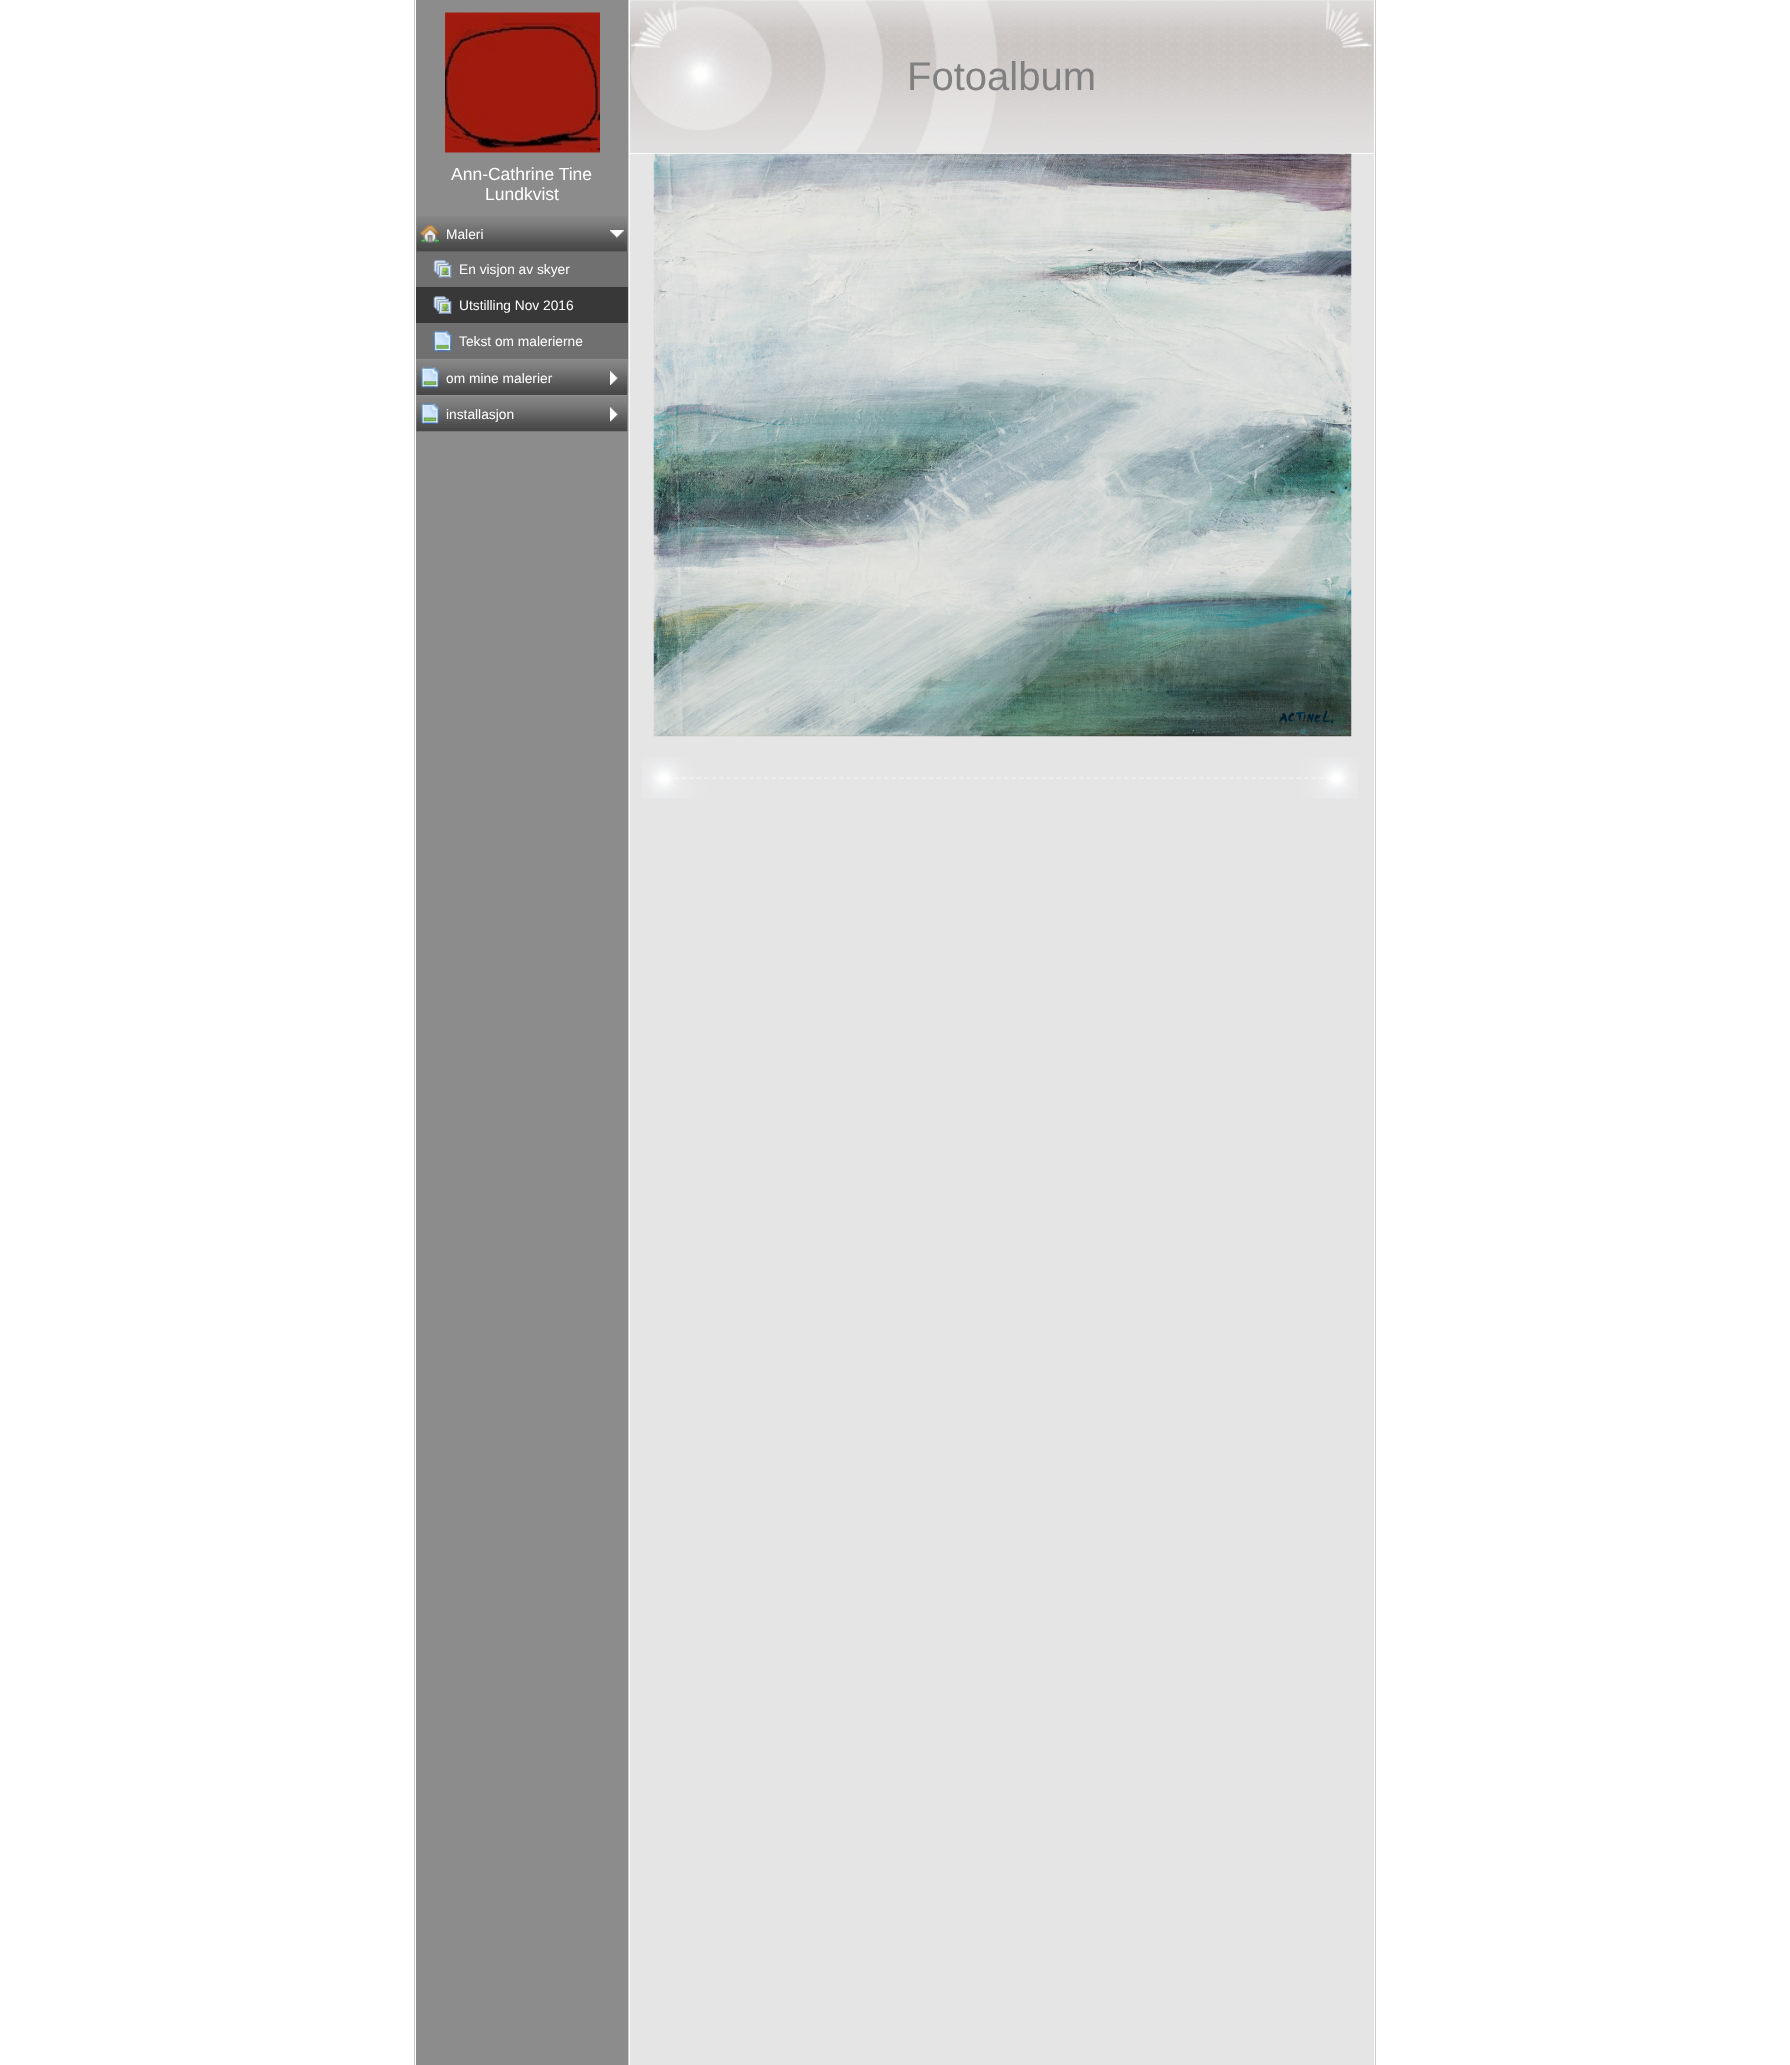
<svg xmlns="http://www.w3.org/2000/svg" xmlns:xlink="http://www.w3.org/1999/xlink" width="1790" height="2065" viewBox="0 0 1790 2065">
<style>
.cls-1{font:40px Liberation Sans;fill:#808080}
.cls-2{font:17.5px Liberation Sans;fill:#ffffff}
.cls-3{font:13.75px Liberation Sans;fill:#ffffff}
</style>
<rect width="100%" height="100%" fill="#ffffff"/>
<rect fill="#cccccc" x="414" y="0" width="1" height="2065"/>
<rect fill="#cccccc" x="628" y="0" width="1" height="2065"/>
<rect fill="#e5e5e5" x="630" y="0" width="744" height="2065"/>
<image xlink:href="image0.png" x="630" y="0" width="744" height="153"/>
<rect fill="#ffffff" x="630" y="153" width="744" height="1"/>
<image xlink:href="image1.png" x="653" y="153" width="699" height="584"/>
<image xlink:href="image2.png" x="642" y="757" width="716" height="42"/>
<rect fill="#cccccc" x="1375" y="0" width="1" height="2065"/>
<rect fill="#8c8c8c" x="416" y="0" width="212" height="2065"/>
<image xlink:href="image3.png" x="445" y="12" width="155" height="141"/>
<image xlink:href="image4.png" x="416" y="216" width="212" height="36"/>
<image xlink:href="image5.png" x="420" y="224" width="20" height="19"/>
<image xlink:href="image6.png" x="610" y="230" width="14" height="8"/>
<rect fill="#000000" fill-opacity="0.2" x="416" y="251" width="212" height="36"/>
<image xlink:href="image7.png" x="433" y="259" width="19" height="19"/>
<rect fill="#383838" x="416" y="287" width="212" height="36"/>
<image xlink:href="image8.png" x="433" y="296" width="19" height="18"/>
<rect fill="#707070" x="416" y="323" width="212" height="36"/>
<image xlink:href="image9.png" x="433" y="331" width="19" height="21"/>
<image xlink:href="image10.png" x="416" y="360" width="212" height="35"/>
<image xlink:href="image11.png" x="421" y="367" width="18" height="21"/>
<image xlink:href="image12.png" x="610" y="371" width="8" height="14"/>
<image xlink:href="image4.png" x="416" y="396" width="212" height="36"/>
<image xlink:href="image13.png" x="421" y="403" width="18" height="21"/>
<image xlink:href="image14.png" x="610" y="407" width="8" height="15"/>
<text class="cls-1" x="907" y="90">Fotoalbum</text>
<text class="cls-2" x="451" y="180">Ann-Cathrine Tine</text>
<text class="cls-2" x="485" y="200">Lundkvist</text>
<text class="cls-3" x="446" y="239">Maleri</text>
<text class="cls-3" x="459" y="274">En visjon av skyer</text>
<text class="cls-3" x="459" y="310">Utstilling Nov 2016</text>
<text class="cls-3" x="459" y="346">Tekst om malerierne</text>
<text class="cls-3" x="446" y="383">om mine malerier</text>
<text class="cls-3" x="446" y="419">installasjon</text>
</svg>
